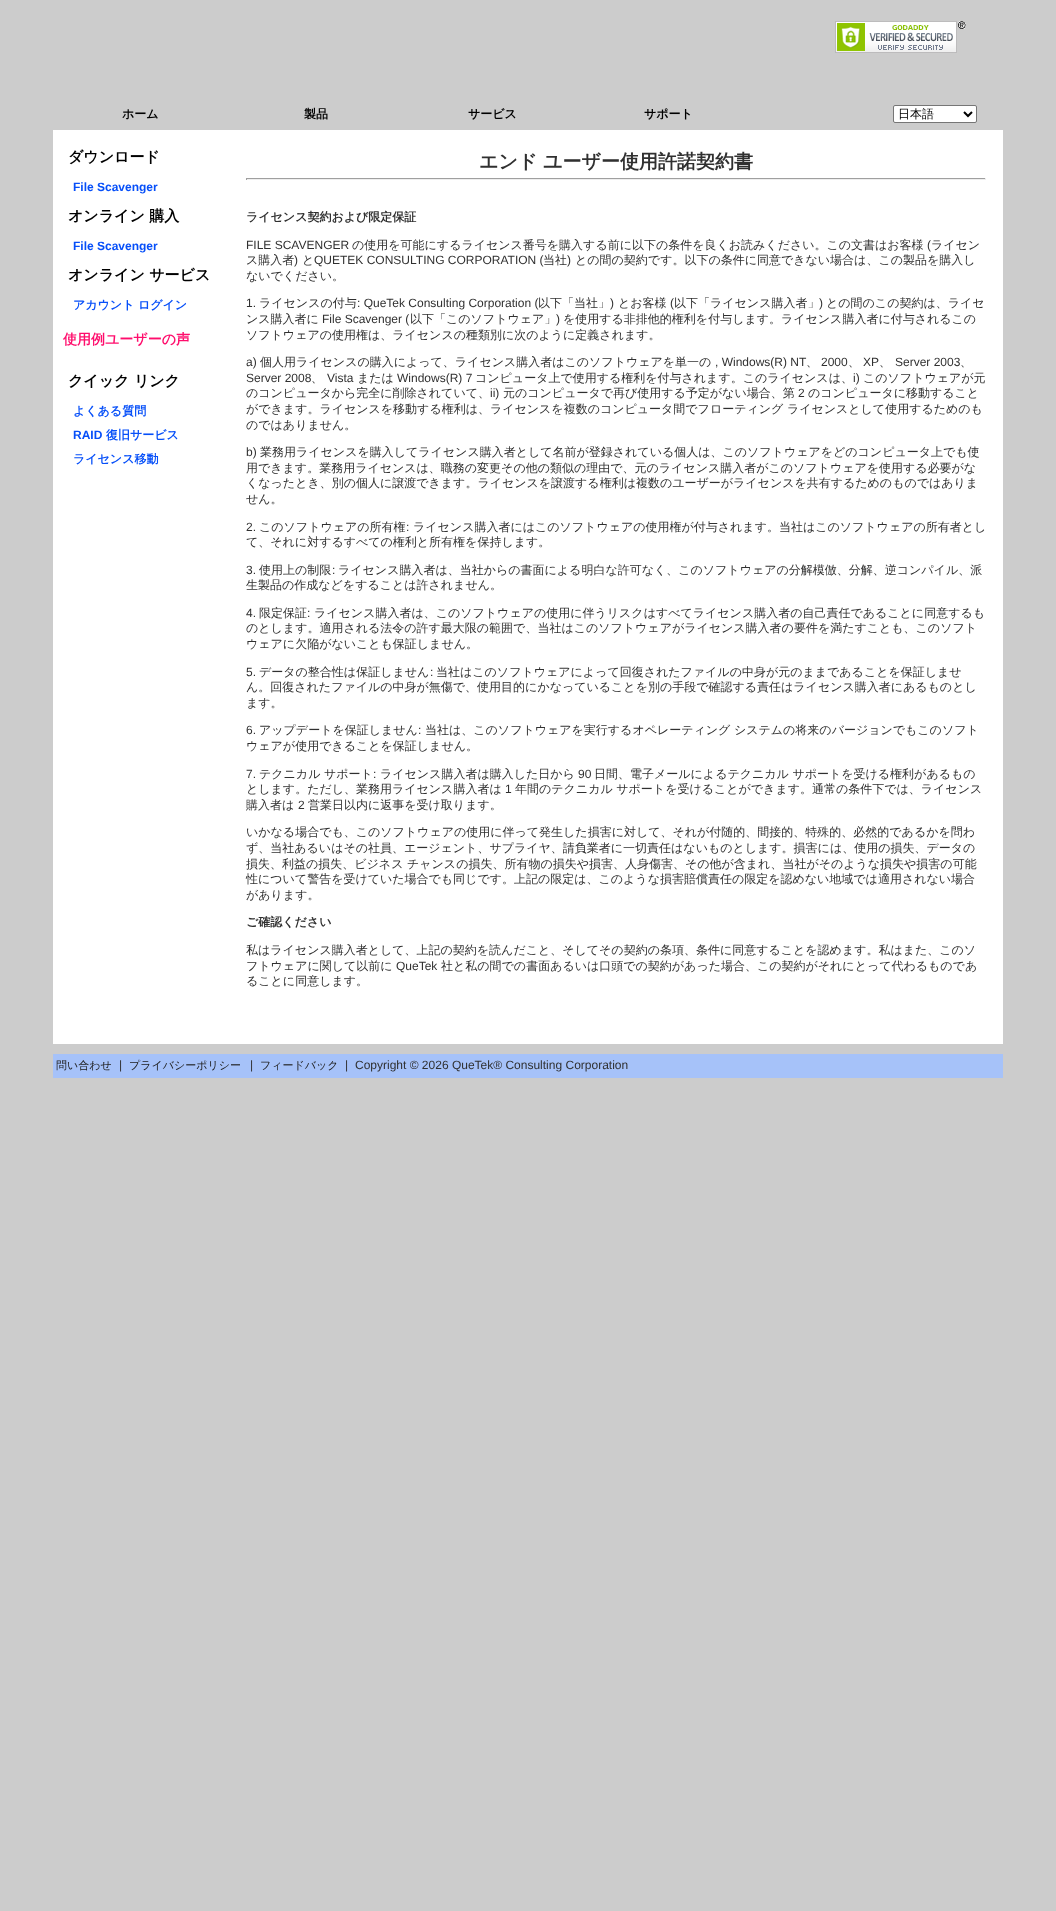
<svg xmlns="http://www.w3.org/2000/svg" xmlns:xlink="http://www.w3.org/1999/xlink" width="1056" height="1911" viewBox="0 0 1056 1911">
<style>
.cls-1{font:bold 12px WenQuanYi Zen Hei;fill:#000000}
.cls-2{font:500 12px WenQuanYi Zen Hei;fill:#000000}
.cls-3{font:bold 15px WenQuanYi Zen Hei;fill:#000000}
.cls-4{font:bold 12px Liberation Sans;fill:#064ff9}
.cls-5{font:bold 12px WenQuanYi Zen Hei;fill:#064ff9}
.cls-6{font:bold 14px WenQuanYi Zen Hei;fill:#ff0d6c}
.cls-7{font:bold 19px WenQuanYi Zen Hei;fill:#303030}
.cls-8{font:bold 12px WenQuanYi Zen Hei;fill:#303030}
.cls-9{font:12px Liberation Sans;fill:#303030}
.cls-10{font:500 12px WenQuanYi Zen Hei;fill:#303030}
.cls-11{font:500 11px WenQuanYi Zen Hei;fill:#202020}
</style>
<rect width="100%" height="100%" fill="#cccccc"/>
<image xlink:href="image0.png" x="835" y="21" width="131" height="32"/>
<rect fill="#ffffff" stroke="#767676" x="893.5" y="105.5" width="83" height="17" rx="1.5"/>
<path fill="none" stroke="#000000" stroke-width="2" d="M964 112L968 116L972 112"/>
<rect fill="#ffffff" x="53" y="130" width="950" height="914"/>
<rect fill="#9f9f9f" x="246" y="178" width="740" height="1"/>
<rect fill="#eeeeee" x="985" y="178" width="1" height="2"/>
<rect fill="#eeeeee" x="246" y="179" width="740" height="1"/>
<rect fill="#9f9f9f" x="246" y="178" width="1" height="2"/>
<rect fill="#a6c2f9" x="53" y="1054" width="950" height="24"/>
<text class="cls-1" x="122" y="118">ホーム</text>
<text class="cls-1" x="304" y="118">製品</text>
<text class="cls-1" x="468" y="118">サービス</text>
<text class="cls-1" x="644" y="118">サポート</text>
<text class="cls-2" x="898" y="118">日本語</text>
<text class="cls-3" x="68" y="162">ダウンロード</text>
<text class="cls-4" x="73" y="191">File Scavenger</text>
<text class="cls-3" x="68" y="221">オンライン 購入</text>
<text class="cls-4" x="73" y="250">File Scavenger</text>
<text class="cls-3" x="68" y="280">オンライン サービス</text>
<text class="cls-5" x="73" y="309">アカウント ログイン</text>
<text class="cls-6" x="63" y="344">使用例ユーザーの声</text>
<text class="cls-3" x="68" y="386">クイック リンク</text>
<text class="cls-5" x="73" y="415">よくある質問</text>
<text class="cls-4" x="73" y="439">RAID</text>
<text class="cls-5" x="106" y="439">復旧サービス</text>
<text class="cls-5" x="73" y="463">ライセンス移動</text>
<text class="cls-7" x="479" y="168">エンド ユーザー使用許諾契約書</text>
<text class="cls-8" x="246" y="221">ライセンス契約および限定保証</text>
<text class="cls-9" x="246" y="249">FILE SCAVENGER</text>
<text class="cls-10" x="352" y="249">の使用を可能にするライセンス番号を購入する前に以下の条件を良くお読みください。この文書はお客様</text>
<text class="cls-9" x="927" y="249">(</text>
<text class="cls-10" x="931" y="249">ライセン</text>
<text class="cls-10" x="246" y="264">ス購入者</text>
<text class="cls-9" x="294" y="264">)</text>
<text class="cls-10" x="302" y="264">と</text>
<text class="cls-9" x="314" y="264">QUETEK CONSULTING CORPORATION (</text>
<text class="cls-10" x="543" y="264">当社</text>
<text class="cls-9" x="567" y="264">)</text>
<text class="cls-10" x="575" y="264">との間の契約です。以下の条件に同意できない場合は、この製品を購入し</text>
<text class="cls-10" x="246" y="280">ないでください。</text>
<text class="cls-9" x="246" y="307">1.</text>
<text class="cls-10" x="259" y="307">ライセンスの付与</text>
<text class="cls-9" x="357" y="307">: QueTek Consulting Corporation (</text>
<text class="cls-10" x="538" y="307">以下「当社」</text>
<text class="cls-9" x="610" y="307">)</text>
<text class="cls-10" x="618" y="307">とお客様</text>
<text class="cls-9" x="670" y="307">(</text>
<text class="cls-10" x="674" y="307">以下「ライセンス購入者」</text>
<text class="cls-9" x="819" y="307">)</text>
<text class="cls-10" x="826" y="307">との間のこの契約は、ライセ</text>
<text class="cls-10" x="246" y="323">ンス購入者に</text>
<text class="cls-9" x="322" y="323">File Scavenger (</text>
<text class="cls-10" x="410" y="323">以下「このソフトウェア」</text>
<text class="cls-9" x="556" y="323">)</text>
<text class="cls-10" x="563" y="323">を使用する非排他的権利を付与します。ライセンス購入者に付与されるこの</text>
<text class="cls-10" x="246" y="339">ソフトウェアの使用権は、ライセンスの種類別に次のように定義されます。</text>
<text class="cls-9" x="246" y="366">a)</text>
<text class="cls-10" x="260" y="366">個人用ライセンスの購入によって、ライセンス購入者はこのソフトウェアを単一の</text>
<text class="cls-9" x="715" y="366">, Windows(R) NT</text>
<text class="cls-10" x="806" y="366">、</text>
<text class="cls-9" x="821" y="366">2000</text>
<text class="cls-10" x="848" y="366">、</text>
<text class="cls-9" x="863" y="366">XP</text>
<text class="cls-10" x="879" y="366">、</text>
<text class="cls-9" x="895" y="366">Server 2003</text>
<text class="cls-10" x="960" y="366">、</text>
<text class="cls-9" x="246" y="382">Server 2008</text>
<text class="cls-10" x="311" y="382">、</text>
<text class="cls-9" x="327" y="382">Vista</text>
<text class="cls-10" x="357" y="382">または</text>
<text class="cls-9" x="397" y="382">Windows(R) 7</text>
<text class="cls-10" x="475" y="382">コンピュータ上で使用する権利を付与されます。このライセンスは、</text>
<text class="cls-9" x="853" y="382">i)</text>
<text class="cls-10" x="863" y="382">このソフトウェアが元</text>
<text class="cls-10" x="246" y="397">のコンピュータから完全に削除されていて、</text>
<text class="cls-9" x="490" y="397">ii)</text>
<text class="cls-10" x="503" y="397">元のコンピュータで再び使用する予定がない場合、第</text>
<text class="cls-9" x="798" y="397">2</text>
<text class="cls-10" x="808" y="397">のコンピュータに移動すること</text>
<text class="cls-10"><tspan x="246" y="413">ができます。ライセンスを移動する権利は、ライセンスを複数のコンピュータ間でフローティング ライセンスとして使用するためのも</tspan><tspan x="246" y="429">のではありません。</tspan></text>
<text class="cls-9" x="246" y="456">b)</text>
<text class="cls-10" x="260" y="456">業務用ライセンスを購入してライセンス購入者として名前が登録されている個人は、このソフトウェアをどのコンピュータ上でも使</text>
<text class="cls-10"><tspan x="246" y="472">用できます。業務用ライセンスは、職務の変更その他の類似の理由で、元のライセンス購入者がこのソフトウェアを使用する必要がな</tspan><tspan x="246" y="487">くなったとき、別の個人に譲渡できます。ライセンスを譲渡する権利は複数のユーザーがライセンスを共有するためのものではありま</tspan><tspan x="246" y="503">せん。</tspan></text>
<text class="cls-9" x="246" y="531">2.</text>
<text class="cls-10" x="259" y="531">このソフトウェアの所有権</text>
<text class="cls-9" x="406" y="531">:</text>
<text class="cls-10" x="413" y="531">ライセンス購入者にはこのソフトウェアの使用権が付与されます。当社はこのソフトウェアの所有者とし</text>
<text class="cls-10" x="246" y="546">て、それに対するすべての権利と所有権を保持します。</text>
<text class="cls-9" x="246" y="574">3.</text>
<text class="cls-10" x="259" y="574">使用上の制限</text>
<text class="cls-9" x="332" y="574">:</text>
<text class="cls-10" x="338" y="574">ライセンス購入者は、当社からの書面による明白な許可なく、このソフトウェアの分解模倣、分解、逆コンパイル、派</text>
<text class="cls-10" x="246" y="589">生製品の作成などをすることは許されません。</text>
<text class="cls-9" x="246" y="617">4.</text>
<text class="cls-10" x="259" y="617">限定保証</text>
<text class="cls-9" x="307" y="617">:</text>
<text class="cls-10" x="314" y="617">ライセンス購入者は、このソフトウェアの使用に伴うリスクはすべてライセンス購入者の自己責任であることに同意するも</text>
<text class="cls-10"><tspan x="246" y="632">のとします。適用される法令の許す最大限の範囲で、当社はこのソフトウェアがライセンス購入者の要件を満たすことも、このソフト</tspan><tspan x="246" y="648">ウェアに欠陥がないことも保証しません。</tspan></text>
<text class="cls-9" x="246" y="676">5.</text>
<text class="cls-10" x="259" y="676">データの整合性は保証しません</text>
<text class="cls-9" x="430" y="676">:</text>
<text class="cls-10" x="436" y="676">当社はこのソフトウェアによって回復されたファイルの中身が元のままであることを保証しませ</text>
<text class="cls-10"><tspan x="246" y="691">ん。回復されたファイルの中身が無傷で、使用目的にかなっていることを別の手段で確認する責任はライセンス購入者にあるものとし</tspan><tspan x="246" y="707">ます。</tspan></text>
<text class="cls-9" x="246" y="734">6.</text>
<text class="cls-10" x="259" y="734">アップデートを保証しません</text>
<text class="cls-9" x="418" y="734">:</text>
<text class="cls-10" x="425" y="734">当社は、このソフトウェアを実行するオペレーティング システムの将来のバージョンでもこのソフト</text>
<text class="cls-10" x="246" y="750">ウェアが使用できることを保証しません。</text>
<text class="cls-9" x="246" y="778">7.</text>
<text class="cls-10" x="259" y="778">テクニカル サポート</text>
<text class="cls-9" x="373" y="778">:</text>
<text class="cls-10" x="380" y="778">ライセンス購入者は購入した日から</text>
<text class="cls-9" x="578" y="778">90</text>
<text class="cls-10" x="594" y="778">日間、電子メールによるテクニカル サポートを受ける権利があるもの</text>
<text class="cls-10" x="246" y="793">とします。ただし、業務用ライセンス購入者は</text>
<text class="cls-9" x="505" y="793">1</text>
<text class="cls-10" x="515" y="793">年間のテクニカル サポートを受けることができます。通常の条件下では、ライセンス</text>
<text class="cls-10" x="246" y="809">購入者は</text>
<text class="cls-9" x="298" y="809">2</text>
<text class="cls-10" x="308" y="809">営業日以内に返事を受け取ります。</text>
<text class="cls-10"><tspan x="246" y="836">いかなる場合でも、このソフトウェアの使用に伴って発生した損害に対して、それが付随的、間接的、特殊的、必然的であるかを問わ</tspan><tspan x="246" y="852">ず、当社あるいはその社員、エージェント、サプライヤ、請負業者に一切責任はないものとします。損害には、使用の損失、データの</tspan><tspan x="246" y="868">損失、利益の損失、ビジネス チャンスの損失、所有物の損失や損害、人身傷害、その他が含まれ、当社がそのような損失や損害の可能</tspan><tspan x="246" y="883">性について警告を受けていた場合でも同じです。上記の限定は、このような損害賠償責任の限定を認めない地域では適用されない場合</tspan><tspan x="246" y="899">があります。</tspan></text>
<text class="cls-8" x="246" y="926">ご確認ください</text>
<text class="cls-10"><tspan x="246" y="954">私はライセンス購入者として、上記の契約を読んだこと、そしてその契約の条項、条件に同意することを認めます。私はまた、このソ</tspan><tspan x="246" y="970">フトウェアに関して以前に</tspan></text>
<text class="cls-9" x="396" y="970">QueTek</text>
<text class="cls-10" x="441" y="970">社と私の間での書面あるいは口頭での契約があった場合、この契約がそれにとって代わるものであ</text>
<text class="cls-10" x="246" y="985">ることに同意します。</text>
<text class="cls-11" x="56" y="1069">問い合わせ</text>
<text class="cls-9" x="119" y="1069">|</text>
<text class="cls-11" x="129" y="1069">プライバシーポリシー</text>
<text class="cls-9" x="250" y="1069">|</text>
<text class="cls-11" x="260" y="1069">フィードバック</text>
<text class="cls-9" x="345" y="1069">|</text>
<text class="cls-9" x="355" y="1069">Copyright © 2026 QueTek® Consulting Corporation</text>
</svg>
